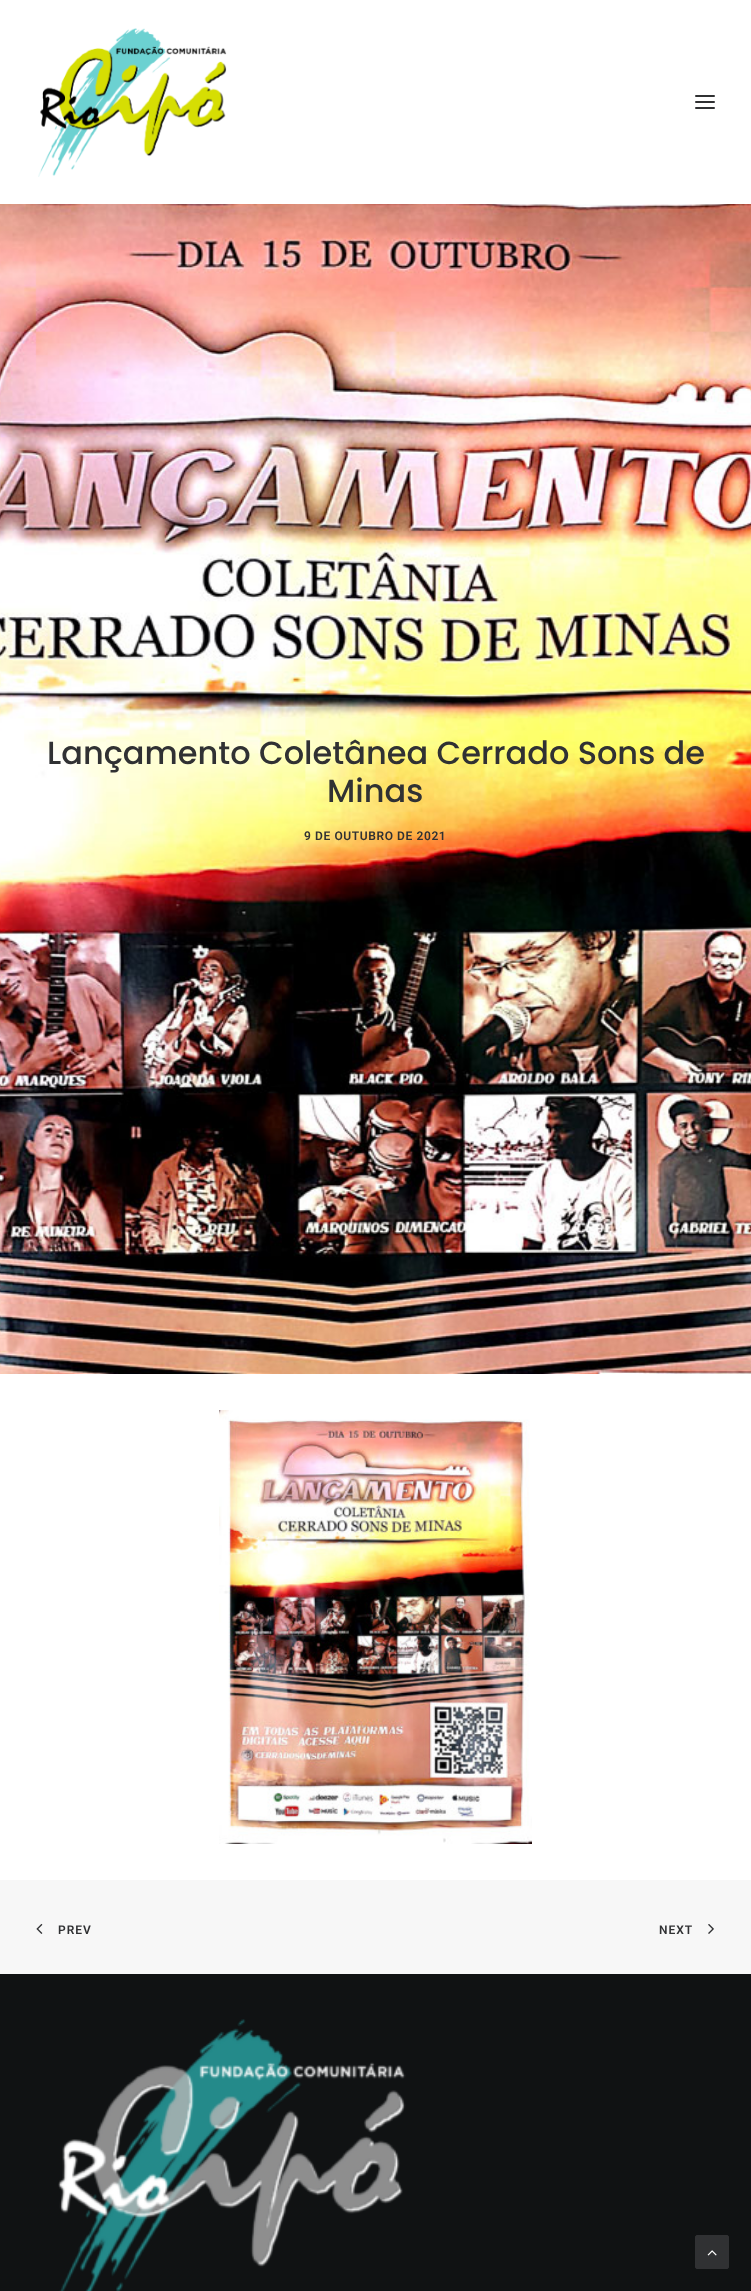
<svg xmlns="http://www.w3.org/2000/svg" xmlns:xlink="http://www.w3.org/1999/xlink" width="751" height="2291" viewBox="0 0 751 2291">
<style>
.cls-1{font:500 32px Poppins;fill:#303133}
.cls-2{font:600 12px Roboto;letter-spacing:0.6px;fill:#303133}
.cls-3{font:600 12px Roboto;letter-spacing:1px;fill:#303133}
</style>
<rect width="100%" height="100%" fill="#ffffff"/>
<image xlink:href="image0.png" x="38" y="28" width="189" height="149"/>
<rect fill="#303133" x="695" y="101" width="20" height="2" rx="1"/>
<rect fill="#303133" x="695" y="95" width="20" height="2" rx="1"/>
<rect fill="#303133" x="695" y="107" width="20" height="2" rx="1"/>
<image xlink:href="image1.png" x="0" y="204" width="751" height="1170"/>
<image xlink:href="image2.png" x="219" y="1410" width="313" height="434"/>
<rect fill="#f7f7f7" x="0" y="1880" width="751" height="94"/>
<image xlink:href="image3.png" x="36" y="1923" width="7" height="11"/>
<image xlink:href="image4.png" x="708" y="1924" width="6" height="10"/>
<rect fill="#101213" x="0" y="1974" width="751" height="317"/>
<image xlink:href="image5.png" x="58" y="2019" width="348" height="272"/>
<rect fill="#303133" stroke="#303133" x="695.5" y="2235.5" width="33" height="33" rx="1.5"/>
<image xlink:href="image6.png" x="707" y="2250" width="10" height="6"/>
<text class="cls-1" x="47" y="764">Lançamento Coletânea Cerrado Sons de</text>
<text class="cls-1" x="327" y="802">Minas</text>
<text class="cls-2" x="304" y="840">9 DE OUTUBRO DE 2021</text>
<text class="cls-3" x="58" y="1934">PREV</text>
<text class="cls-3" x="659" y="1934">NEXT</text>
</svg>
